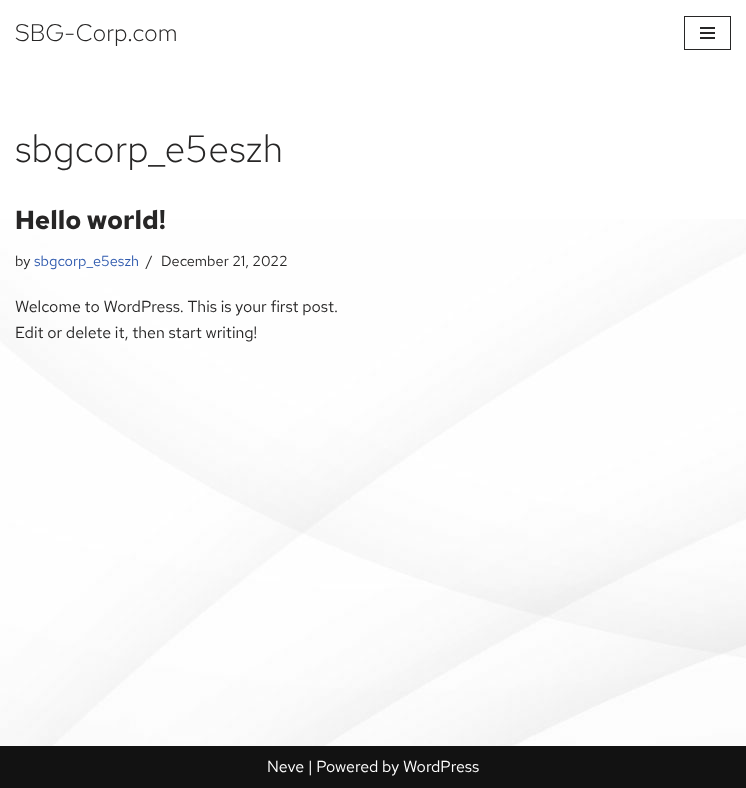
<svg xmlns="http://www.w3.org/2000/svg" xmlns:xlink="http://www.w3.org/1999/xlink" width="746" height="788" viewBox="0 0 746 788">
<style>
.cls-1{font:300 24px Red Hat Text;fill:#272626}
.cls-2{font:300 38px Red Hat Text;fill:#272626}
.cls-3{font:bold 26px Red Hat Text;fill:#272626}
.cls-4{font:14.5px Red Hat Text;fill:#272626}
.cls-5{font:14.5px Red Hat Text;fill:#2f5aae}
.cls-6{font:16px Red Hat Text;fill:#272626}
.cls-7{font:16px Red Hat Text;fill:#ffffff}
</style>
<rect width="100%" height="100%" fill="#ffffff"/>
<image xlink:href="image0.png" x="0" y="219" width="746" height="527"/>
<rect fill="none" stroke="#272626" x="684.5" y="16.5" width="46" height="33"/>
<rect fill="#272626" x="700" y="27" width="15" height="2"/>
<rect fill="#272626" x="700" y="32" width="15" height="2"/>
<rect fill="#272626" x="700" y="37" width="15" height="2"/>
<rect fill="#121212" x="0" y="746" width="746" height="42"/>
<text class="cls-1" x="15" y="41">SBG-Corp.com</text>
<text class="cls-2" x="15" y="162">sbgcorp_e5eszh</text>
<text class="cls-3" x="15" y="229">Hello world!</text>
<text class="cls-4" x="15" y="266">by</text>
<text class="cls-5" x="34" y="266">sbgcorp_e5eszh</text>
<text class="cls-4" x="146" y="266">/</text>
<text class="cls-4" x="161" y="266">December 21, 2022</text>
<text class="cls-6"><tspan x="15" y="312">Welcome to WordPress. This is your first post.</tspan><tspan x="15" y="338">Edit or delete it, then start writing!</tspan></text>
<text class="cls-7" x="267" y="772">Neve | Powered by WordPress</text>
</svg>
